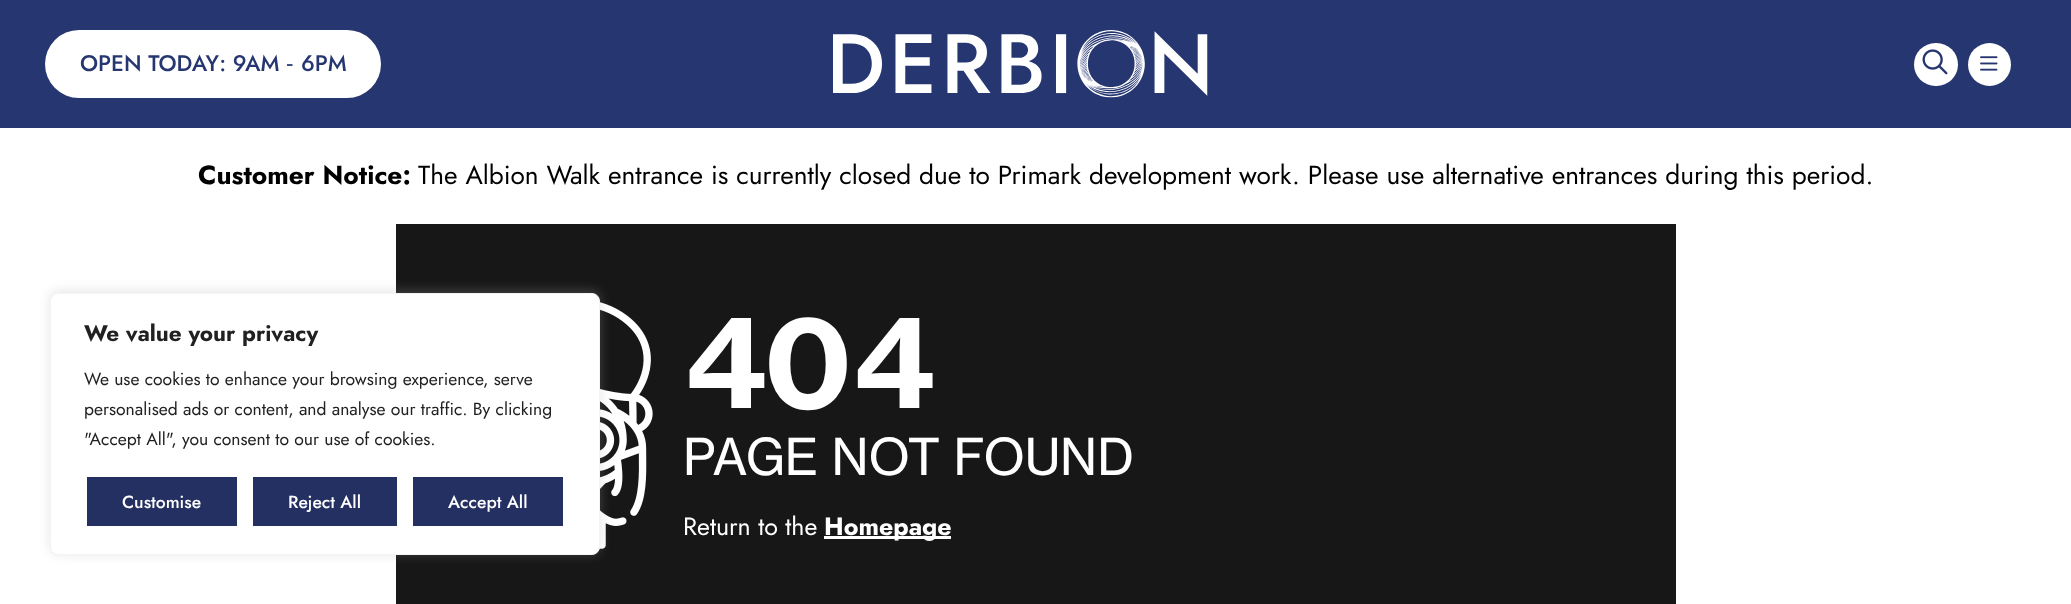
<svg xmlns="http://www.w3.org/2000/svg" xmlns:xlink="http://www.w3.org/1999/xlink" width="2071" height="604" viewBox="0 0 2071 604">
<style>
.cls-1{font:500 22.5px Jost;fill:#263670}
.cls-2{font:22.5px Liberation Sans;fill:#263670}
.cls-3{font:bold 26.25px Jost;fill:#000000}
.cls-4{font:26.25px Jost;fill:#000000}
.cls-5{font:bold 22.5px Jost;fill:#212121}
.cls-6{font:17.5px Jost;fill:#212121}
.cls-7{font:500 17.5px Jost;fill:#ffffff}
.cls-8{font:bold 125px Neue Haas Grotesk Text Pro;fill:#ffffff}
.cls-9{font:50px Neue Haas Grotesk Text Pro;fill:#ffffff}
.cls-10{font:25px Jost;fill:#ffffff}
.cls-11{font:bold 25px Jost;fill:#ffffff}
</style>
<rect width="100%" height="100%" fill="#ffffff"/>
<rect fill="#263670" x="0" y="0" width="2071" height="128"/>
<rect fill="#ffffff" x="45" y="30" width="336" height="68" rx="34"/>
<image xlink:href="image0.png" x="833" y="30" width="375" height="68"/>
<rect fill="#ffffff" x="1914" y="43" width="44" height="43" rx="21.5"/>
<image xlink:href="image1.png" x="1922" y="49" width="26" height="26"/>
<circle fill="#ffffff" cx="1989.5" cy="64.5" r="21.5"/>
<image xlink:href="image2.png" x="1980" y="56" width="18" height="15"/>
<rect fill="#171718" x="396" y="224" width="1280" height="380"/>
<image xlink:href="image3.png" x="599" y="302" width="54" height="247"/>
<rect fill="#acabab" fill-opacity="0.3" filter="blur(6px)" x="50" y="291" width="550" height="263" rx="8"/>
<rect fill="#ffffff" stroke="#f4f4f4" x="50.5" y="293.5" width="549" height="261" rx="7.5"/>
<rect fill="#242f62" stroke="#ffffff" stroke-width="3" x="85.5" y="475.5" width="153" height="52" rx="1"/>
<rect fill="#242f62" stroke="#ffffff" stroke-width="3" x="251.5" y="475.5" width="147" height="52" rx="1"/>
<rect fill="#242f62" stroke="#ffffff" stroke-width="3" x="411.5" y="475.5" width="153" height="52" rx="1"/>
<rect fill="#ffffff" x="824" y="536" width="127" height="3"/>
<text class="cls-1" x="80" y="71">OPEN TODAY: 9AM</text>
<text class="cls-2" x="286" y="71">‐</text>
<text class="cls-1" x="301" y="71">6PM</text>
<text class="cls-3" x="198" y="184">Customer Notice:</text>
<text class="cls-4" x="418" y="184">The Albion Walk entrance is currently closed due to Primark development work. Please use alternative entrances during this period.</text>
<text class="cls-5" x="84" y="341">We value your privacy</text>
<text class="cls-6"><tspan x="84" y="385">We use cookies to enhance your browsing experience, serve</tspan><tspan x="84" y="415">personalised ads or content, and analyse our traffic. By clicking</tspan><tspan x="84" y="445">"Accept All", you consent to our use of cookies.</tspan></text>
<text class="cls-7" x="122" y="508">Customise</text>
<text class="cls-7" x="288" y="508">Reject All</text>
<text class="cls-7" x="448" y="508">Accept All</text>
<text class="cls-8" x="683" y="408">404</text>
<text class="cls-9" x="683" y="475">PAGE NOT FOUND</text>
<text class="cls-10" x="683" y="535">Return to the</text>
<text class="cls-11" x="824" y="535">Homepage</text>
</svg>
